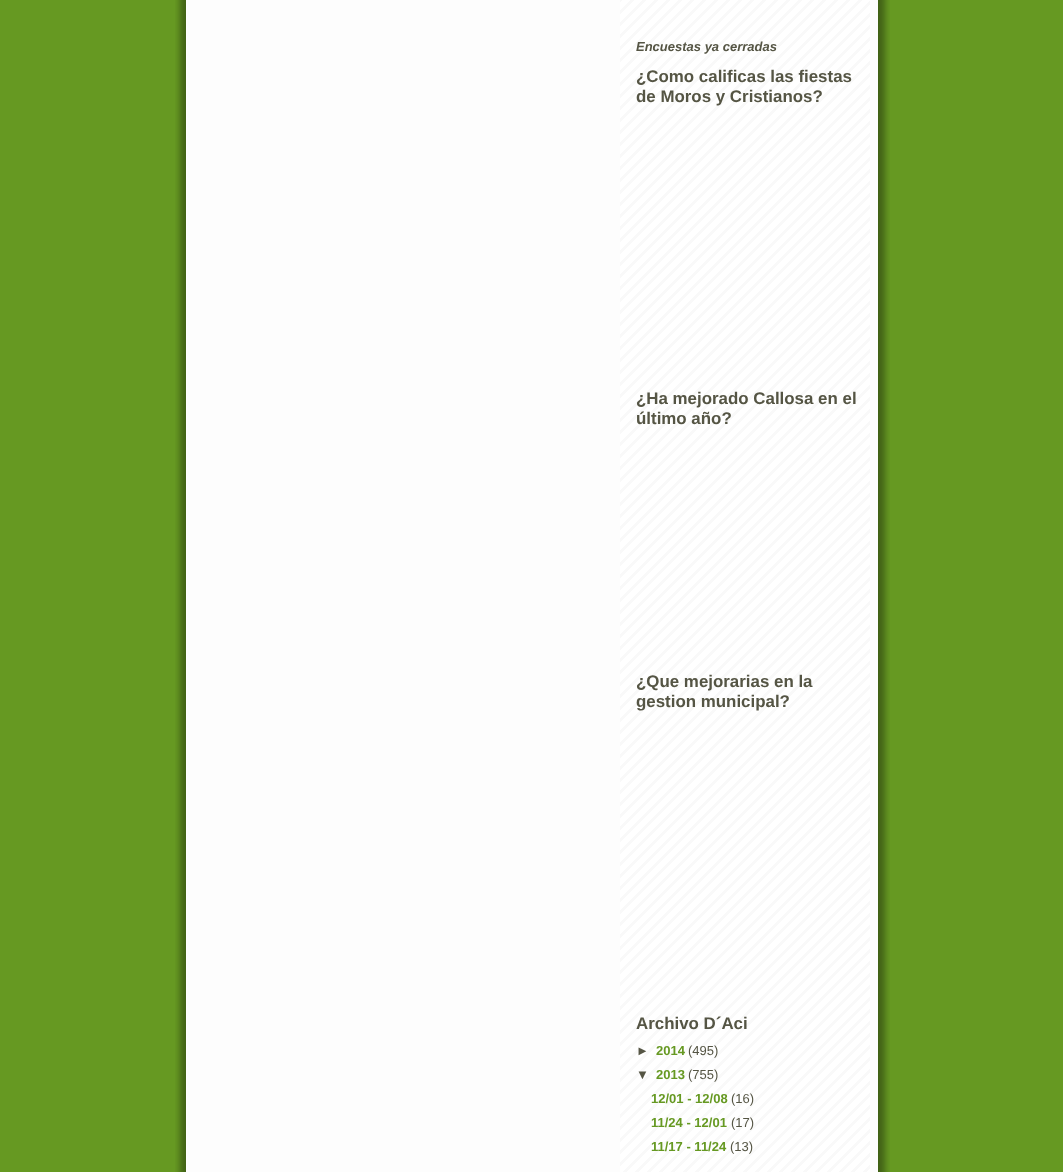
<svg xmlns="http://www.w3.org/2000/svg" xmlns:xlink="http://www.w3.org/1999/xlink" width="1063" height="1172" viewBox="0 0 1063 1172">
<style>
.cls-1{font:italic bold 13px Liberation Sans;fill:#555544}
.cls-2{font:bold 16.9px Liberation Sans;fill:#555544}
.cls-3{font:bold 13px Liberation Sans;fill:#555544}
.cls-4{font:bold 13px Liberation Sans;fill:#669922}
.cls-5{font:13px Liberation Sans;fill:#555544}
</style>
<rect width="100%" height="100%" fill="#669922"/>
<image xlink:href="image0.png" x="175" y="0" width="715" height="1172"/>
<rect fill="#ffffff" x="186" y="0" width="1" height="1172"/>
<image xlink:href="image1.png" x="620" y="0" width="250" height="1172"/>
<text class="cls-1" x="636" y="51">Encuestas ya cerradas</text>
<text class="cls-2"><tspan x="636" y="82">¿Como calificas las fiestas</tspan><tspan x="636" y="102">de Moros y Cristianos?</tspan></text>
<text class="cls-2"><tspan x="636" y="404">¿Ha mejorado Callosa en el</tspan><tspan x="636" y="424">último año?</tspan></text>
<text class="cls-2"><tspan x="636" y="687">¿Que mejorarias en la</tspan><tspan x="636" y="707">gestion municipal?</tspan></text>
<text class="cls-2" x="636" y="1029">Archivo D´Aci</text>
<text class="cls-3" x="636" y="1055">►</text>
<text class="cls-4" x="656" y="1055">2014</text>
<text class="cls-5" x="688" y="1055">(495)</text>
<text class="cls-3" x="636" y="1079">▼</text>
<text class="cls-4" x="656" y="1079">2013</text>
<text class="cls-5" x="688" y="1079">(755)</text>
<text class="cls-4" x="651" y="1103">12/01 - 12/08</text>
<text class="cls-5" x="731" y="1103">(16)</text>
<text class="cls-4" x="651" y="1127">11/24 - 12/01</text>
<text class="cls-5" x="731" y="1127">(17)</text>
<text class="cls-4" x="651" y="1151">11/17 - 11/24</text>
<text class="cls-5" x="730" y="1151">(13)</text>
</svg>
